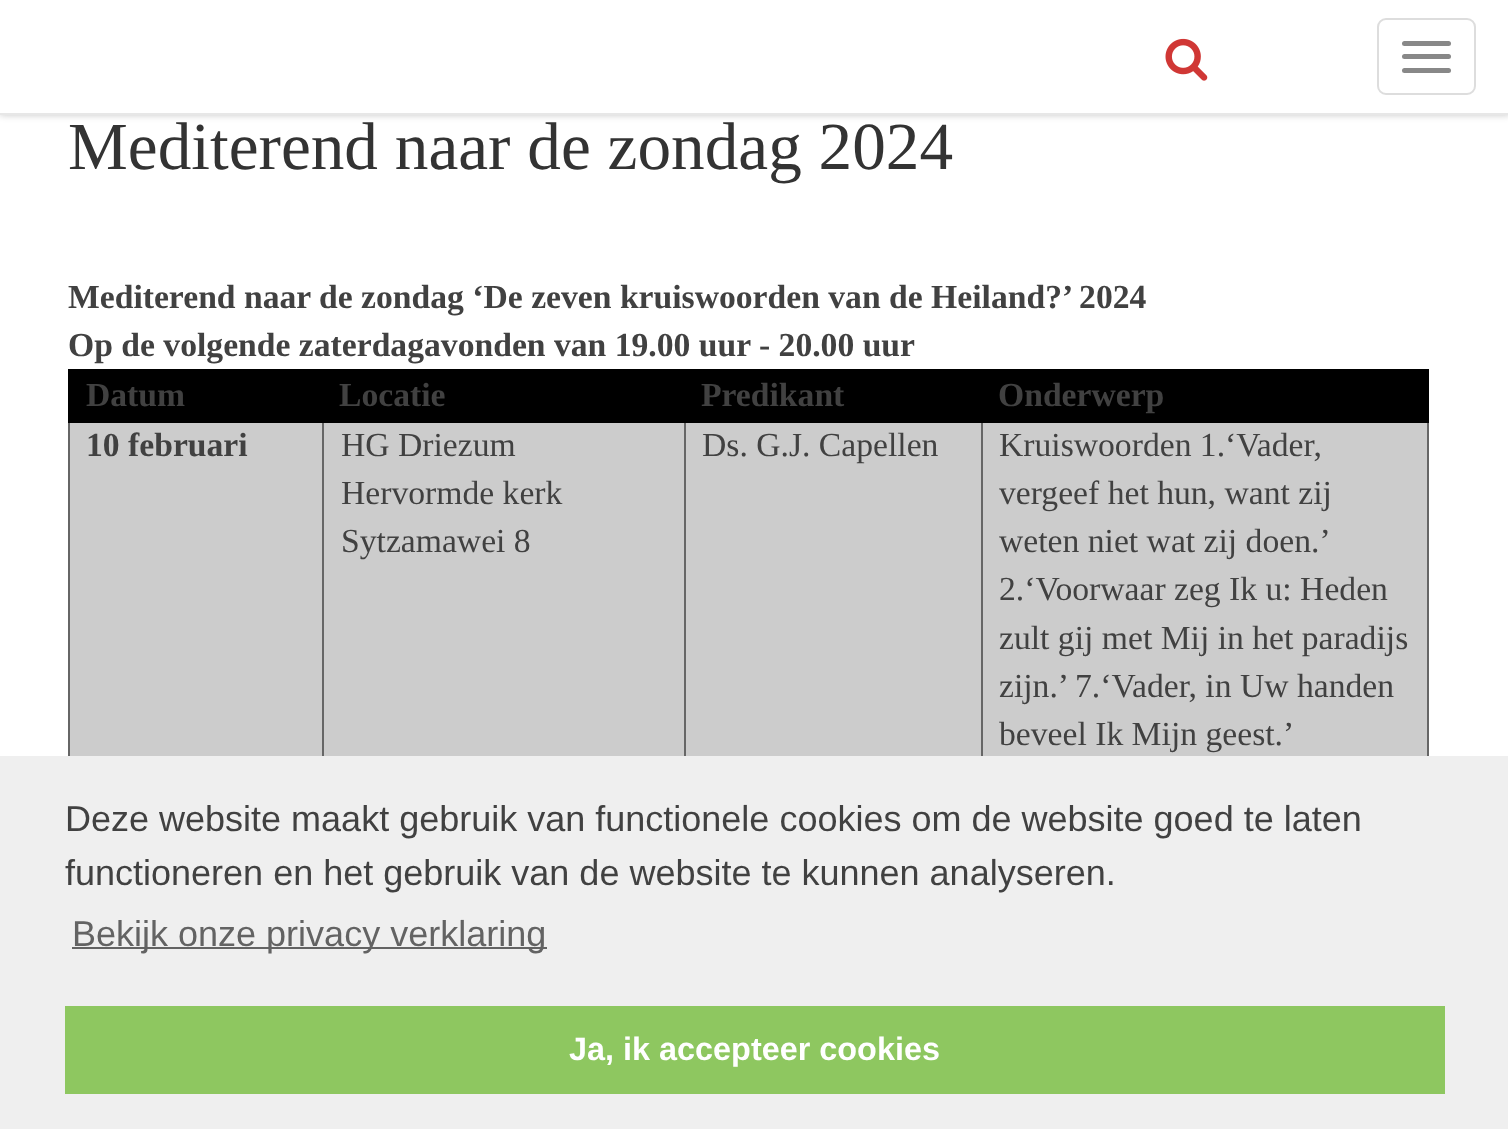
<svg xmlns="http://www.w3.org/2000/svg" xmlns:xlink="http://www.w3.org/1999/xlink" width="1508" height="1129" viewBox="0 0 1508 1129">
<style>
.cls-1{font:67.25px Liberation Serif;fill:#333333}
.cls-2{font:bold 33.65px Liberation Serif;fill:#414141}
.cls-3{font:33.65px Liberation Serif;fill:#414141}
.cls-4{font:36px Liberation Sans;fill:#414141}
.cls-5{font:36px Liberation Sans;fill:#636363}
.cls-6{font:bold 32.4px Liberation Sans;fill:#ffffff}
</style>
<rect width="100%" height="100%" fill="#ffffff"/>
<rect fill="#000000" fill-opacity="0.22" filter="blur(3.5px)" x="0" y="0" width="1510" height="115"/>
<rect fill="#ffffff" x="0" y="0" width="1508" height="113"/>
<rect fill="#e7e7e7" x="0" y="113" width="1508" height="2"/>
<image xlink:href="image0.png" x="1165" y="38" width="43" height="43"/>
<rect fill="none" stroke="#dddddd" stroke-width="2" x="1378" y="19" width="97" height="75" rx="8"/>
<rect fill="#888888" x="1402" y="41" width="49" height="5" rx="2.5"/>
<rect fill="#888888" x="1402" y="54" width="49" height="5" rx="2.5"/>
<rect fill="#888888" x="1402" y="68" width="49" height="5" rx="2.5"/>
<rect fill="#000000" x="70" y="371" width="1357" height="50"/>
<rect fill="#000000" x="68" y="369" width="1361" height="2"/>
<rect fill="#666666" x="1427" y="421" width="2" height="340"/>
<rect fill="#000000" x="1427" y="369" width="2" height="54"/>
<rect fill="#666666" x="322" y="421" width="2" height="340"/>
<rect fill="#666666" x="68" y="421" width="2" height="340"/>
<rect fill="#666666" x="684" y="421" width="2" height="340"/>
<rect fill="#666666" x="981" y="421" width="2" height="340"/>
<rect fill="#000000" x="68" y="421" width="1361" height="2"/>
<rect fill="#000000" x="68" y="369" width="2" height="54"/>
<rect fill="#cccccc" x="70" y="423" width="252" height="333"/>
<rect fill="#cccccc" x="324" y="423" width="360" height="333"/>
<rect fill="#cccccc" x="686" y="423" width="295" height="333"/>
<rect fill="#cccccc" x="983" y="423" width="444" height="333"/>
<rect fill="#efefef" x="0" y="756" width="1508" height="373"/>
<rect fill="#636363" x="72" y="947" width="475" height="2"/>
<rect fill="#8ec760" x="65" y="1006" width="1380" height="88"/>
<text class="cls-1" x="68" y="169">Mediterend naar de zondag 2024</text>
<text class="cls-2"><tspan x="68" y="308">Mediterend naar de zondag ‘De zeven kruiswoorden van de Heiland?’ 2024</tspan><tspan x="68" y="356">Op de volgende zaterdagavonden van 19.00 uur - 20.00 uur</tspan></text>
<text class="cls-2" x="86" y="406">Datum</text>
<text class="cls-2" x="339" y="406">Locatie</text>
<text class="cls-2" x="701" y="406">Predikant</text>
<text class="cls-2" x="998" y="406">Onderwerp</text>
<text class="cls-2" x="86" y="456">10 februari</text>
<text class="cls-3"><tspan x="341" y="456">HG Driezum</tspan><tspan x="341" y="504">Hervormde kerk</tspan><tspan x="341" y="552">Sytzamawei 8</tspan></text>
<text class="cls-3" x="702" y="456">Ds. G.J. Capellen</text>
<text class="cls-3"><tspan x="999" y="456">Kruiswoorden 1.‘Vader,</tspan><tspan x="999" y="504">vergeef het hun, want zij</tspan><tspan x="999" y="552">weten niet wat zij doen.’</tspan><tspan x="999" y="600">2.‘Voorwaar zeg Ik u: Heden</tspan><tspan x="999" y="649">zult gij met Mij in het paradijs</tspan><tspan x="999" y="697">zijn.’ 7.‘Vader, in Uw handen</tspan><tspan x="999" y="745">beveel Ik Mijn geest.’</tspan></text>
<text class="cls-4"><tspan x="65" y="831">Deze website maakt gebruik van functionele cookies om de website goed te laten</tspan><tspan x="65" y="885">functioneren en het gebruik van de website te kunnen analyseren.</tspan></text>
<text class="cls-5" x="72" y="946">Bekijk onze privacy verklaring</text>
<text class="cls-6" x="569" y="1060">Ja, ik accepteer cookies</text>
</svg>
